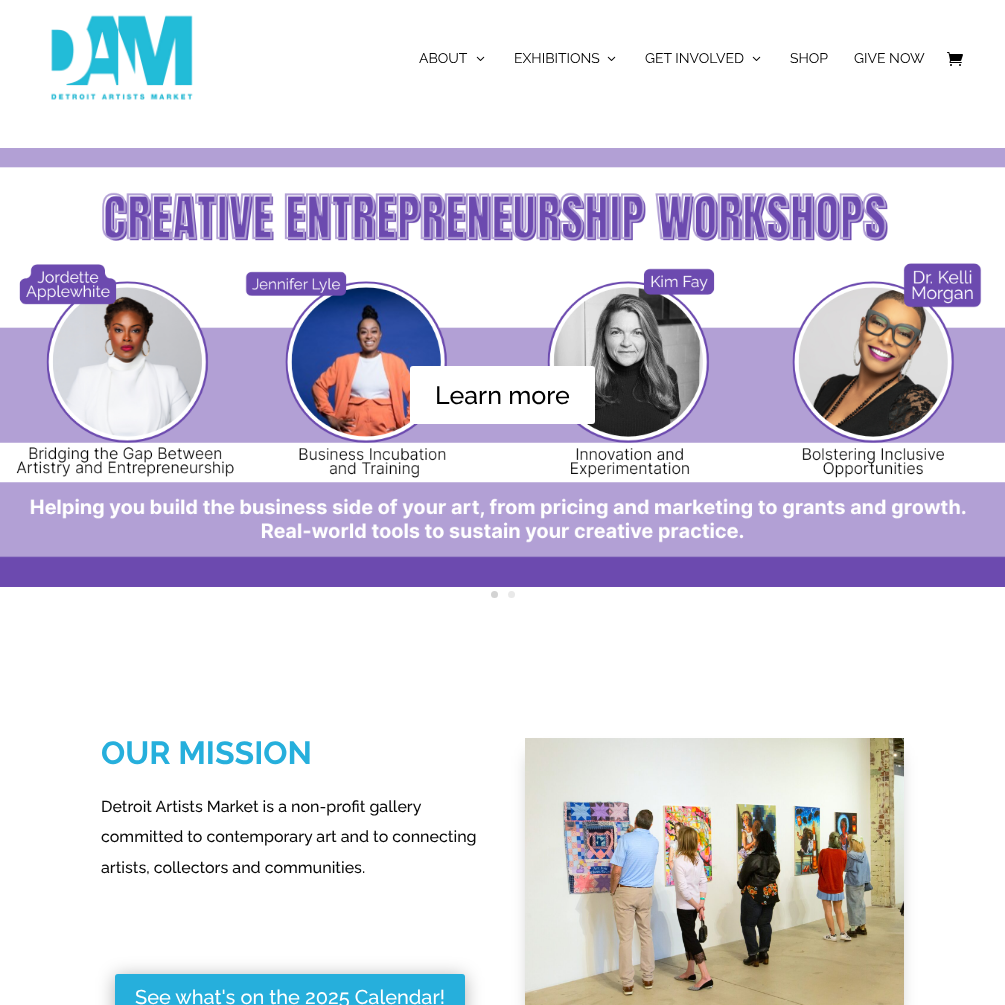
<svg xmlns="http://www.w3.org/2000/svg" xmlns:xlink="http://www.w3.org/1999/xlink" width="1005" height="1005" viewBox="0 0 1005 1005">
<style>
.cls-1{font:14px Raleway;fill:#000000}
.cls-2{font:500 25px Raleway;fill:#000000}
.cls-3{font:bold 32px Raleway;fill:#26afdc}
.cls-4{font:500 16px Raleway;fill:#0a0a0a}
.cls-5{font:500 20px Raleway;fill:#ffffff}
</style>
<rect width="100%" height="100%" fill="#ffffff"/>
<image xlink:href="image0.png" x="51" y="15" width="142" height="85"/>
<image xlink:href="image1.png" x="476" y="56" width="9" height="5"/>
<image xlink:href="image1.png" x="607" y="56" width="9" height="5"/>
<image xlink:href="image1.png" x="752" y="56" width="9" height="5"/>
<image xlink:href="image2.png" x="947" y="52" width="16" height="14"/>
<image xlink:href="image3.png" x="0" y="148" width="1005" height="439"/>
<rect fill="#ffffff" x="410" y="366" width="185" height="58" rx="3"/>
<circle fill="#d3d3d3" cx="494.5" cy="594.5" r="3.5"/>
<circle fill="#e9e9e9" cx="511.5" cy="594.5" r="3.5"/>
<rect fill="#000000" fill-opacity="0.3" filter="blur(9px)" x="115" y="976" width="350" height="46" rx="3"/>
<rect fill="#26afdc" x="115" y="974" width="350" height="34" rx="3"/>
<rect fill="#000000" fill-opacity="0.3" filter="blur(9px)" x="531" y="756" width="367" height="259"/>
<image xlink:href="image4.png" x="525" y="738" width="379" height="267"/>
<text class="cls-1" x="419" y="63">ABOUT</text>
<text class="cls-1" x="514" y="63">EXHIBITIONS</text>
<text class="cls-1" x="645" y="63">GET INVOLVED</text>
<text class="cls-1" x="790" y="63">SHOP</text>
<text class="cls-1" x="854" y="63">GIVE NOW</text>
<text class="cls-2" x="435" y="404">Learn more</text>
<text class="cls-3" x="101" y="764">OUR MISSION</text>
<text class="cls-4"><tspan x="101" y="812">Detroit Artists Market is a non-profit gallery</tspan><tspan x="101" y="842">committed to contemporary art and to connecting</tspan><tspan x="101" y="873">artists, collectors and communities.</tspan></text>
<text class="cls-5" x="135" y="1004">See what's on the 2025 Calendar!</text>
</svg>
